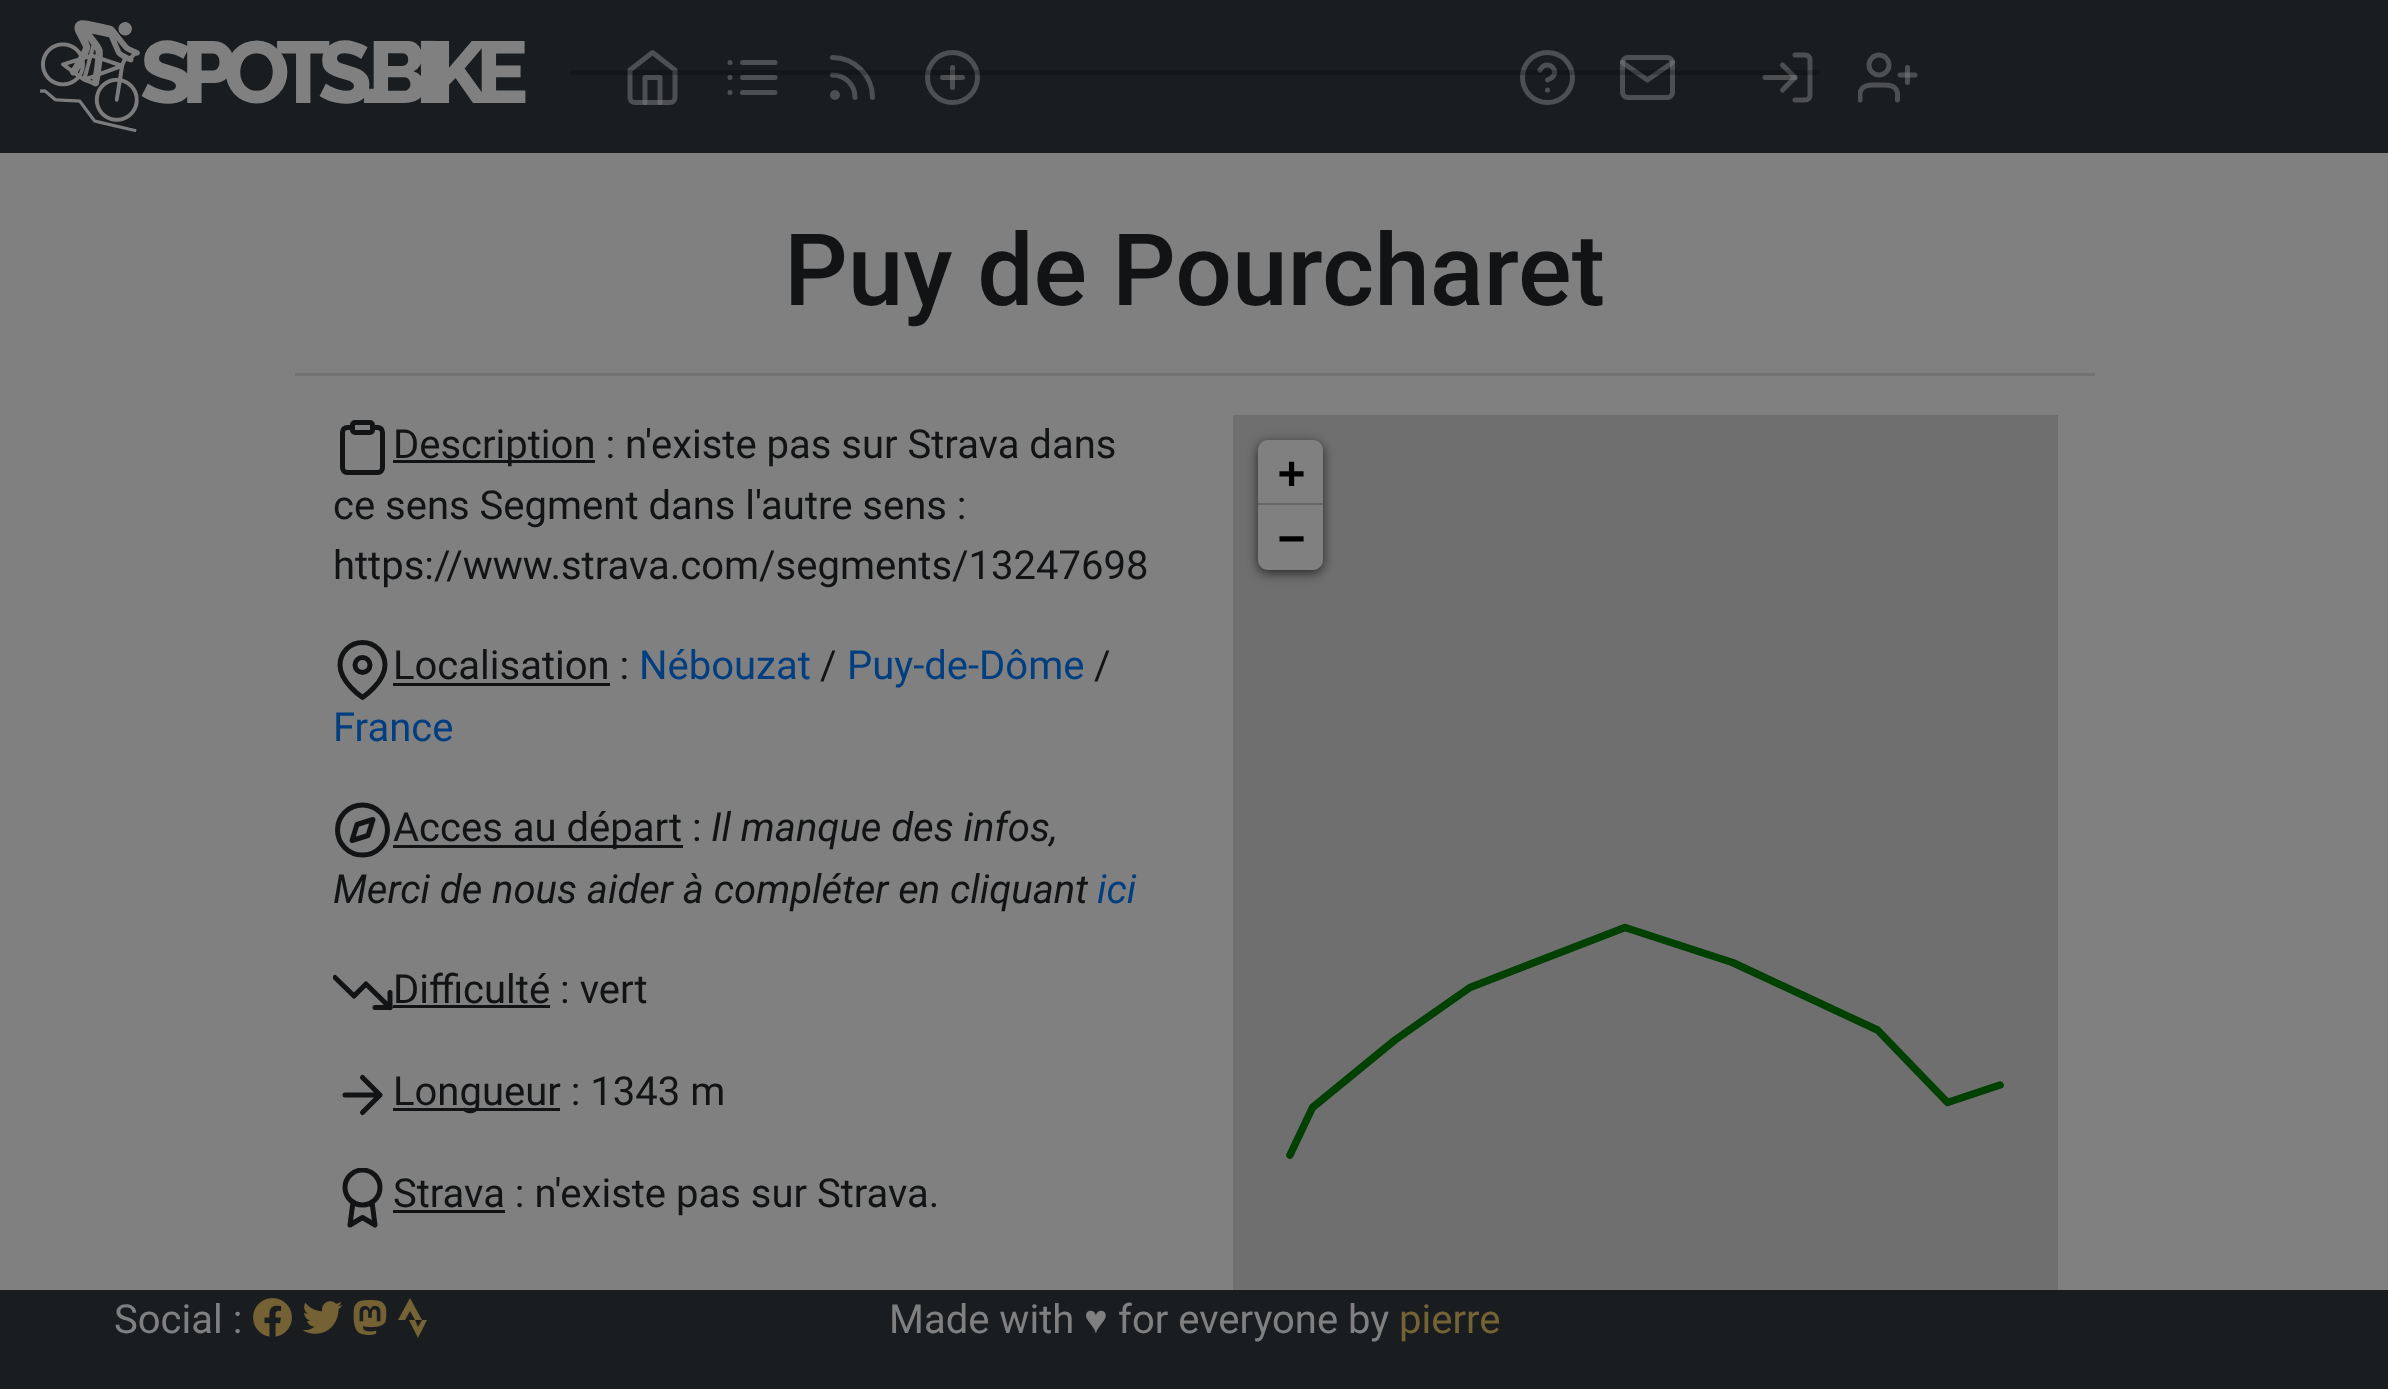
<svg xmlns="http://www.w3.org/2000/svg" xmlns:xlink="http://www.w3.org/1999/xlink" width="2388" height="1389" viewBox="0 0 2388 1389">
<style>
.cls-1{font:800 87.5px Raleway;letter-spacing:-12.5px;fill:#808080}
.cls-2{font:500 100px Roboto;fill:#111315}
.cls-3{font:40px Roboto;fill:#111315}
.cls-4{font:40px Roboto;fill:#003e80}
.cls-5{font:italic 40px Roboto;fill:#111315}
.cls-6{font:italic 40px Roboto;fill:#003e80}
.cls-7{font:bold 45px DejaVu Sans Mono;fill:#000000}
.cls-8{font:40px Roboto;fill:#808080}
.cls-9{font:40px Liberation Sans;fill:#808080}
.cls-10{font:40px Roboto;fill:#756235}
</style>
<defs>
<clipPath id="clip1"><rect x="1858" y="48" width="60" height="60"/></clipPath>
<clipPath id="clip2"><rect x="333" y="963" width="60" height="60"/></clipPath>
<clipPath id="clip3"><rect x="333" y="1168" width="60" height="60"/></clipPath>
</defs>
<rect width="100%" height="100%" fill="#808080"/>
<rect fill="#1a1d20" x="0" y="0" width="2388" height="153"/>
<image xlink:href="image0.png" x="40" y="20" width="100" height="113"/>
<path fill="none" stroke="#4d4f50" stroke-width="5" stroke-linecap="round" stroke-linejoin="round" d="M630 70L652.5 52.5L675 70V97.5C675 100.5 673 102.5 670 102.5H635C632 102.5 630 100.5 630 97.5Z"/>
<path fill="none" stroke="#808080" stroke-opacity="0.5" stroke-width="5" stroke-linecap="round" stroke-linejoin="round" d="M645 102.5V77.5H660V102.5"/>
<path fill="none" stroke="#4d4f50" stroke-width="5" stroke-linecap="round" stroke-linejoin="round" d="M742.5 62.5H775M742.5 77.5H775M742.5 92.5H775M730 62.5H730M730 77.5H730M730 92.5H730"/>
<path fill="none" stroke="#4d4f50" stroke-width="5" stroke-linecap="round" stroke-linejoin="round" d="M832.5 75C845 75 855 85 855 97.5M832.5 57.5C854.5 57.5 872.5 75.5 872.5 97.5"/>
<circle fill="none" stroke="#4d4f50" stroke-width="5" cx="835" cy="95" r="2.5"/>
<circle fill="none" stroke="#4d4f50" stroke-width="5" cx="952.5" cy="77.5" r="25"/>
<path fill="none" stroke="#4d4f50" stroke-width="5" stroke-linecap="round" stroke-linejoin="round" d="M952.5 67.5V87.5"/>
<path fill="none" stroke="#808080" stroke-opacity="0.5" stroke-width="5" stroke-linecap="round" stroke-linejoin="round" d="M942.5 77.5H962.5"/>
<circle fill="none" stroke="#4d4f50" stroke-width="5" cx="1547.5" cy="77.5" r="25"/>
<path fill="none" stroke="#4d4f50" stroke-width="5" stroke-linecap="round" stroke-linejoin="round" d="M1540 70C1541 68.5 1542 67 1543.5 66C1552 61 1561.5 75 1547.5 80M1547.5 90H1547.5"/>
<path fill="none" stroke="#4d4f50" stroke-width="5" stroke-linecap="round" stroke-linejoin="round" d="M1627.5 57.5H1667.5C1670 57.5 1672.5 60 1672.5 62.5V92.5C1672.5 95 1670 97.5 1667.5 97.5H1627.5C1625 97.5 1622.5 95 1622.5 92.5V62.5C1622.5 60 1625 57.5 1627.5 57.5Z"/>
<path fill="none" stroke="#808080" stroke-opacity="0.5" stroke-width="5" stroke-linecap="round" stroke-linejoin="round" d="M1672.5 62.5L1647.5 80L1622.5 62.5"/>
<path fill="none" stroke="#4d4f50" stroke-width="5" stroke-linecap="round" stroke-linejoin="round" d="M1795 55H1805C1808 55 1810 57 1810 60V95C1810 98 1808 100 1805 100H1795M1782.5 90L1795 77.5L1782.5 65"/>
<path fill="none" stroke="#808080" stroke-opacity="0.5" stroke-width="5" stroke-linecap="round" stroke-linejoin="round" d="M1795 77.5H1765"/>
<circle fill="none" stroke="#4d4f50" stroke-width="5" cx="1879" cy="65" r="10"/>
<path fill="none" stroke="#4d4f50" stroke-width="5" stroke-linecap="round" stroke-linejoin="round" d="M1907.5 67.5V82.5"/>
<path fill="none" stroke="#808080" stroke-opacity="0.5" stroke-width="5" stroke-linecap="round" stroke-linejoin="round" d="M1915 75H1900"/>
<g clip-path="url(#clip1)">
<path fill="none" stroke="#4d4f50" stroke-width="5" stroke-linecap="round" stroke-linejoin="round" d="M1897.5 100V93C1895.5 83.5 1886 85 1879 85C1871.5 85 1862 83.5 1860 93V100"/>
</g>
<rect fill="#737373" x="295" y="373" width="1800" height="3"/>
<path fill="none" stroke="#111315" stroke-width="5" stroke-linecap="round" stroke-linejoin="round" d="M372.5 427.5H377.5C380.5 427.5 382.5 429.5 382.5 432.5V467.5C382.5 470.5 380.5 472.5 377.5 472.5H347.5C344.5 472.5 342.5 470.5 342.5 467.5V432.5C342.5 429.5 344.5 427.5 347.5 427.5H352.5"/>
<rect fill="none" stroke="#111315" stroke-width="5" x="352.5" y="422.5" width="20" height="10" rx="2.5"/>
<rect fill="#111315" x="393" y="460" width="202" height="3"/>
<path fill="none" stroke="#111315" stroke-width="5" stroke-linecap="round" stroke-linejoin="round" d="M385 665C385 682.5 362.5 697.5 362.5 697.5C362.5 697.5 340 682.5 340 665C340 652.5 350 642.5 362.5 642.5C375 642.5 385 652.5 385 665Z"/>
<rect fill="#111315" x="393" y="683" width="217" height="3"/>
<circle fill="none" stroke="#111315" stroke-width="5" cx="362.5" cy="665" r="7.5"/>
<circle fill="none" stroke="#111315" stroke-width="5" cx="362.5" cy="830" r="25"/>
<rect fill="#111315" x="393" y="845" width="290" height="3"/>
<path fill="none" stroke="#111315" stroke-width="5" stroke-linecap="round" stroke-linejoin="round" d="M373 819.5L368 835.5L352 840.5L357 824.5Z"/>
<g clip-path="url(#clip2)">
<path fill="none" stroke="#111315" stroke-width="5" stroke-linecap="round" stroke-linejoin="round" d="M390 1007.5L366 984L354 996L335 977.5"/>
</g>
<rect fill="#111315" x="393" y="1005" width="157" height="3"/>
<path fill="none" stroke="#111315" stroke-width="5" stroke-linecap="round" stroke-linejoin="round" d="M375 1007.5H390V992.5"/>
<path fill="none" stroke="#111315" stroke-width="5" stroke-linecap="round" stroke-linejoin="round" d="M345 1095H380M362.5 1077.5L380 1095L362.5 1112.5"/>
<rect fill="#111315" x="393" y="1108" width="167" height="3"/>
<g clip-path="url(#clip3)">
<circle fill="none" stroke="#111315" stroke-width="5" cx="362.5" cy="1187.5" r="17.5"/>
</g>
<rect fill="#111315" x="393" y="1210" width="112" height="3"/>
<path fill="none" stroke="#111315" stroke-width="5" stroke-linecap="round" stroke-linejoin="round" d="M353 1202L350 1225L362.5 1217.5L375 1225L372 1202"/>
<rect fill="#6f6f6f" x="1233" y="415" width="825" height="875"/>
<rect fill="#000000" fill-opacity="0.65" filter="blur(6px)" x="1258" y="443" width="65" height="130" rx="10"/>
<path fill="#808080" d="M1268 440H1313C1318.5 440 1323 444.5 1323 450V505H1258V450C1258 444.5 1262.5 440 1268 440Z"/>
<rect fill="#666666" x="1258" y="503" width="65" height="2"/>
<path fill="#808080" d="M1258 505H1323V560C1323 565.5 1318.5 570 1313 570H1268C1262.5 570 1258 565.5 1258 560Z"/>
<path fill="none" stroke="#004000" stroke-width="7.5" stroke-linecap="round" stroke-linejoin="round" d="M2000 1085L1947.5 1102.5L1877.5 1030L1732.5 962.5L1625 927.5L1470 987.5L1395 1040L1312.5 1107.5L1290 1155"/>
<rect fill="#1a1d20" x="0" y="1290" width="2388" height="99"/>
<image xlink:href="image1.png" x="253" y="1298" width="39" height="39"/>
<image xlink:href="image2.png" x="302" y="1301" width="41" height="33"/>
<image xlink:href="image3.png" x="353" y="1300" width="34" height="35"/>
<path fill="#756235" d="M410 1298L422 1320H415L410 1311L405 1320H398ZM422 1320H427L418 1338L409 1320H415L418 1327Z"/>
<rect fill="#000000" fill-opacity="0.2" x="570" y="70" width="1250" height="5" rx="2.5"/>
<text class="cls-1" x="140" y="103">SPOTS.BIKE</text>
<text class="cls-2" x="784" y="305">Puy de Pourcharet</text>
<text class="cls-3" x="393" y="458">Description : n'existe pas sur Strava dans</text>
<text class="cls-3"><tspan x="333" y="519">ce sens Segment dans l'autre sens :</tspan><tspan x="333" y="579">https://www.strava.com/segments/13247698</tspan></text>
<text class="cls-3" x="393" y="679">Localisation :</text>
<text class="cls-4" x="639" y="679">Nébouzat</text>
<text class="cls-3" x="820" y="679">/</text>
<text class="cls-4" x="847" y="679">Puy-de-Dôme</text>
<text class="cls-3" x="1094" y="679">/</text>
<text class="cls-4" x="333" y="741">France</text>
<text class="cls-3" x="393" y="841">Acces au départ :</text>
<text class="cls-5" x="711" y="841">Il manque des infos,</text>
<text class="cls-5" x="333" y="903">Merci de nous aider à compléter en cliquant</text>
<text class="cls-6" x="1097" y="903">ici</text>
<text class="cls-3" x="393" y="1003">Difficulté : vert</text>
<text class="cls-3" x="393" y="1105">Longueur : 1343 m</text>
<text class="cls-3" x="393" y="1207">Strava : n'existe pas sur Strava.</text>
<text class="cls-7"><tspan x="1278" y="488">+</tspan><tspan x="1278" y="553">−</tspan></text>
<text class="cls-8" x="114" y="1333">Social :</text>
<text class="cls-8" x="889" y="1333">Made with</text>
<text class="cls-9" x="1084" y="1333">♥</text>
<text class="cls-8" x="1118" y="1333">for everyone by</text>
<text class="cls-10" x="1399" y="1333">pierre</text>
</svg>
